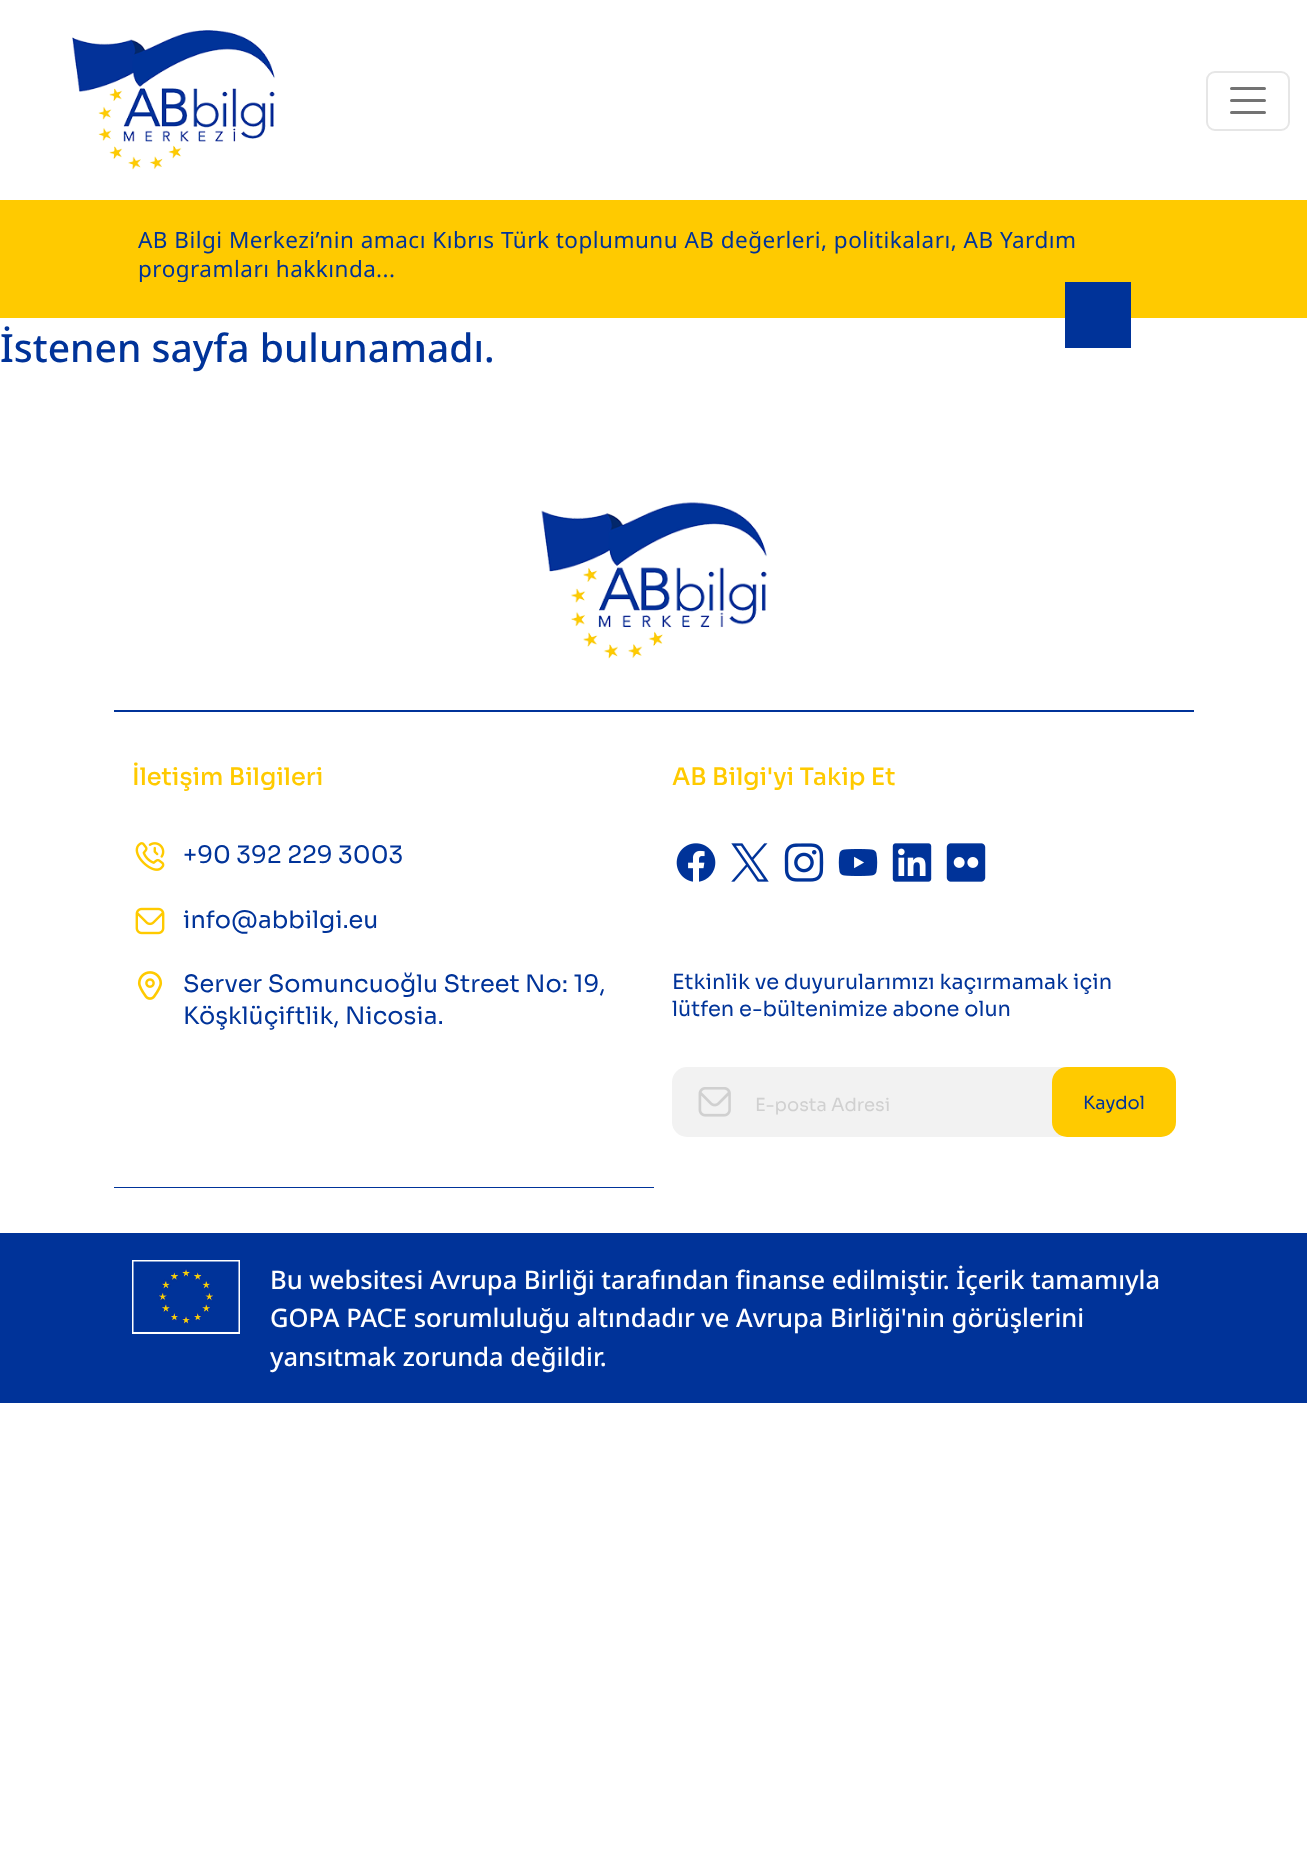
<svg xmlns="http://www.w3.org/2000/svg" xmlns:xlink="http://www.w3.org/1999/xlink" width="1307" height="1860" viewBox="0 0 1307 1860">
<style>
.cls-1{font:22.5px Noto Sans;letter-spacing:0.48px;fill:#003399}
.cls-2{font:500 39px Noto Sans;fill:#003399}
.cls-3{font:500 24px Sora;fill:#ffca00}
.cls-4{font:24px Sora;fill:#003399}
.cls-5{font:21px Sora;fill:#003399}
.cls-6{font:18px Sora;fill:#d0d0d0}
.cls-7{font:18px Sora;fill:#003399}
.cls-8{font:500 25.5px Noto Sans;fill:#ffffff}
</style>
<defs>
<clipPath id="clip1"><rect x="138" y="225" width="1032" height="57"/></clipPath>
</defs>
<rect width="100%" height="100%" fill="#ffffff"/>
<image xlink:href="image0.png" x="72" y="30" width="203" height="140"/>
<rect fill="none" stroke="#e6e6e6" stroke-width="2" x="1207" y="72" width="82" height="58" rx="8"/>
<path fill="none" stroke="#737373" stroke-width="3" stroke-linecap="round" d="M1231.5 88.5H1264.5M1231.5 100.5H1264.5M1231.5 112.5H1264.5"/>
<rect fill="#ffca00" x="0" y="200" width="1307" height="118"/>
<rect fill="#003399" x="1065" y="282" width="66" height="66"/>
<rect fill="#003399" x="114" y="710" width="1080" height="2"/>
<image xlink:href="image1.png" x="541" y="502" width="226" height="157"/>
<rect fill="#003399" x="114" y="1187" width="540" height="1"/>
<image xlink:href="image2.png" x="135" y="842" width="30" height="29"/>
<image xlink:href="image3.png" x="135" y="907" width="30" height="28"/>
<image xlink:href="image4.png" x="137" y="971" width="26" height="29"/>
<image xlink:href="image5.png" x="676" y="843" width="40" height="39"/>
<image xlink:href="image6.png" x="731" y="843" width="38" height="39"/>
<image xlink:href="image7.png" x="784" y="843" width="40" height="39"/>
<image xlink:href="image8.png" x="838" y="849" width="40" height="27"/>
<image xlink:href="image9.png" x="892" y="843" width="40" height="39"/>
<image xlink:href="image10.png" x="946" y="843" width="40" height="39"/>
<rect fill="#f2f2f2" x="672" y="1067" width="402" height="70" rx="15"/>
<image xlink:href="image11.png" x="698" y="1087" width="33" height="30"/>
<rect fill="#ffca00" x="1052" y="1067" width="124" height="70" rx="15"/>
<rect fill="#003399" x="0" y="1233" width="1307" height="170"/>
<rect fill="none" stroke="#ffffff" stroke-width="2" x="133" y="1261" width="106" height="72"/>
<image xlink:href="image12.png" x="133" y="1261" width="106" height="71"/>
<text class="cls-1" x="138" y="248">AB Bilgi Merkezi’nin amacı Kıbrıs Türk toplumunu AB değerleri, politikaları, AB Yardım</text>
<g clip-path="url(#clip1)">
<text class="cls-1" x="138" y="277">programları hakkında</text>
</g>
<text class="cls-1" x="376" y="277">...</text>
<text class="cls-2" x="0" y="362">İstenen sayfa bulunamadı.</text>
<text class="cls-3" x="132" y="785">İletişim Bilgileri</text>
<text class="cls-4" x="183" y="863">+90 392 229 3003</text>
<text class="cls-4" x="183" y="928">info@abbilgi.eu</text>
<text class="cls-4"><tspan x="183" y="992">Server Somuncuoğlu Street No: 19,</tspan><tspan x="183" y="1024">Köşklüçiftlik, Nicosia.</tspan></text>
<text class="cls-3" x="672" y="785">AB Bilgi'yi Takip Et</text>
<text class="cls-5"><tspan x="672" y="989">Etkinlik ve duyurularımızı kaçırmamak için</tspan><tspan x="672" y="1016">lütfen e-bültenimize abone olun</tspan></text>
<text class="cls-6" x="755" y="1111">E-posta Adresi</text>
<text class="cls-7" x="1083" y="1109">Kaydol</text>
<text class="cls-8"><tspan x="270" y="1289">Bu websitesi Avrupa Birliği tarafından finanse edilmiştir. İçerik tamamıyla</tspan><tspan x="270" y="1327">GOPA PACE sorumluluğu altındadır ve Avrupa Birliği'nin görüşlerini</tspan><tspan x="270" y="1366">yansıtmak zorunda değildir.</tspan></text>
</svg>
